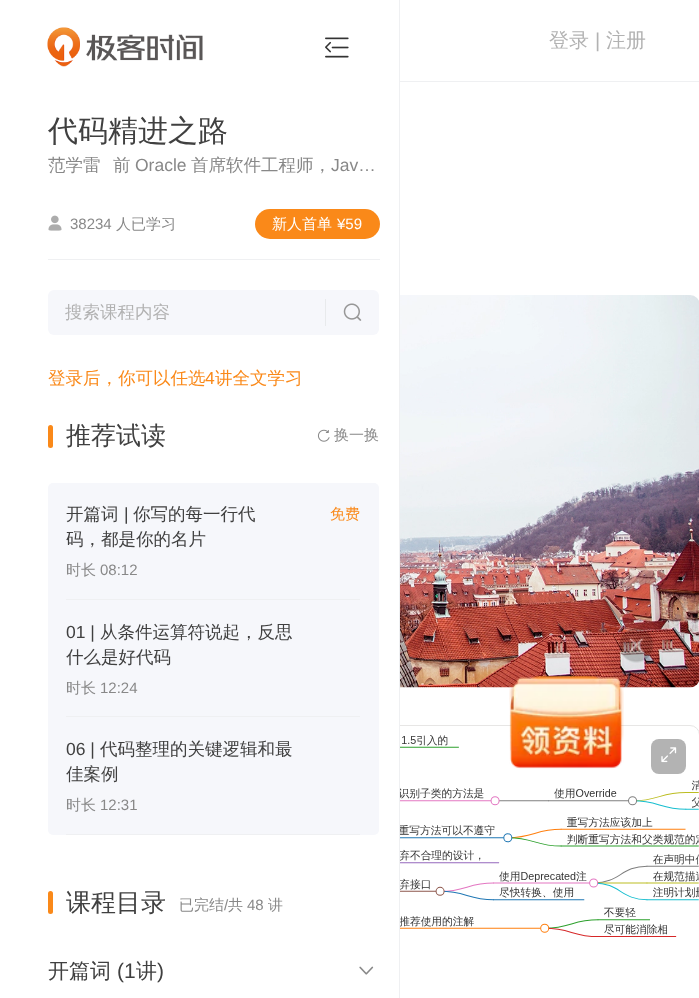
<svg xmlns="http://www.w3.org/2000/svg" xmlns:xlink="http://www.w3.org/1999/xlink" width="699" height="998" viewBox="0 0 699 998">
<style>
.cls-1{font:500 20px WenQuanYi Zen Hei;fill:#b2b2b2}
.cls-2{font:20px Liberation Sans;fill:#b2b2b2}
.cls-3{font:500 30px WenQuanYi Zen Hei;fill:#404040}
.cls-4{font:500 17.5px WenQuanYi Zen Hei;fill:#888888}
.cls-5{font:17.5px Liberation Sans;fill:#888888}
.cls-6{font:15px Liberation Sans;fill:#888888}
.cls-7{font:500 15px WenQuanYi Zen Hei;fill:#888888}
.cls-8{font:500 15px WenQuanYi Zen Hei;fill:#ffffff}
.cls-9{font:15px Liberation Sans;fill:#ffffff}
.cls-10{font:500 17.5px WenQuanYi Zen Hei;fill:#b2b2b2}
.cls-11{font:500 17.5px WenQuanYi Zen Hei;fill:#fa8919}
.cls-12{font:17.5px Liberation Sans;fill:#fa8919}
.cls-13{font:500 25px WenQuanYi Zen Hei;fill:#404040}
.cls-14{font:500 17.5px WenQuanYi Zen Hei;fill:#404040}
.cls-15{font:17.5px Liberation Sans;fill:#404040}
.cls-16{font:500 15px WenQuanYi Zen Hei;fill:#fa8919}
.cls-17{font:500 21px WenQuanYi Zen Hei;fill:#404040}
.cls-18{font:21px Liberation Sans;fill:#404040}
</style>
<rect width="100%" height="100%" fill="#ffffff"/>
<rect fill="#eff0f2" x="400" y="81" width="299" height="1"/>
<image xlink:href="image0.png" x="400" y="295" width="299" height="393"/>
<rect fill="none" stroke="#e7e6e5" x="0.5" y="725.5" width="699" height="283" rx="9.5"/>
<image xlink:href="image1.png" x="400" y="735" width="299" height="202"/>
<rect fill="#b3b3b3" x="651" y="739" width="35" height="35" rx="8"/>
<image xlink:href="image2.png" x="661" y="747" width="16" height="16"/>
<image xlink:href="image3.png" x="619" y="627" width="35" height="36"/>
<image xlink:href="image4.png" x="509" y="675" width="115" height="94"/>
<rect fill="#ffffff" x="0" y="725" width="399" height="273"/>
<rect fill="#eff0f2" x="399" y="0" width="1" height="998"/>
<image xlink:href="image5.png" x="47" y="27" width="156" height="40"/>
<image xlink:href="image6.png" x="325" y="37" width="24" height="21"/>
<rect fill="#eff0f2" x="48" y="259" width="332" height="1"/>
<image xlink:href="image7.png" x="48" y="215" width="14" height="16"/>
<rect fill="#fa8919" x="255" y="209" width="125" height="30" rx="15"/>
<rect fill="#f6f7fb" x="48" y="290" width="331" height="45" rx="6"/>
<rect fill="#e8eaec" x="325" y="299" width="1" height="27"/>
<image xlink:href="image8.png" x="343" y="303" width="19" height="18"/>
<rect fill="#fa8919" x="48" y="425" width="5" height="23" rx="2.5"/>
<image xlink:href="image9.png" x="317" y="429" width="13" height="13"/>
<rect fill="#f6f7fb" x="48" y="483" width="331" height="352" rx="5"/>
<rect fill="#eff0f2" x="66" y="599" width="294" height="1"/>
<rect fill="#eff0f2" x="66" y="716" width="294" height="1"/>
<rect fill="#eff0f2" x="66" y="834" width="294" height="1"/>
<rect fill="#fa8919" x="48" y="891" width="5" height="23" rx="2.5"/>
<image xlink:href="image10.png" x="359" y="966" width="15" height="9"/>
<text class="cls-1" x="549" y="47">登录</text>
<text class="cls-2" x="595" y="47">|</text>
<text class="cls-1" x="606" y="47">注册</text>
<text class="cls-3" x="48" y="141">代码精进之路</text>
<text class="cls-4" x="48" y="171">范学雷</text>
<text class="cls-4" x="113" y="171">前</text>
<text class="cls-5" x="135" y="171">Oracle</text>
<text class="cls-4" x="191" y="171">首席软件工程师，</text>
<text class="cls-5" x="331" y="171">Jav…</text>
<text class="cls-6" x="70" y="229">38234</text>
<text class="cls-7" x="116" y="229">人已学习</text>
<text class="cls-8" x="272" y="229">新⼈⾸单</text>
<text class="cls-9" x="337" y="229">¥59</text>
<text class="cls-10" x="65" y="318">搜索课程内容</text>
<text class="cls-11" x="48" y="384">登录后，你可以任选</text>
<text class="cls-12" x="205" y="384">4</text>
<text class="cls-11" x="215" y="384">讲全文学习</text>
<text class="cls-13" x="66" y="444">推荐试读</text>
<text class="cls-7" x="334" y="440">换一换</text>
<text class="cls-14" x="66" y="520">开篇词</text>
<text class="cls-15" x="124" y="520">|</text>
<text class="cls-14" x="133" y="520">你写的每一行代</text>
<text class="cls-14" x="66" y="545">码，都是你的名片</text>
<text class="cls-7" x="66" y="575">时长</text>
<text class="cls-6" x="100" y="575">08:12</text>
<text class="cls-16" x="330" y="519">免费</text>
<text class="cls-15" x="66" y="638">01 |</text>
<text class="cls-14" x="100" y="638">从条件运算符说起，反思</text>
<text class="cls-14" x="66" y="663">什么是好代码</text>
<text class="cls-7" x="66" y="693">时长</text>
<text class="cls-6" x="100" y="693">12:24</text>
<text class="cls-15" x="66" y="755">06 |</text>
<text class="cls-14" x="100" y="755">代码整理的关键逻辑和最</text>
<text class="cls-14" x="66" y="780">佳案例</text>
<text class="cls-7" x="66" y="810">时长</text>
<text class="cls-6" x="100" y="810">12:31</text>
<text class="cls-13" x="66" y="911">课程目录</text>
<text class="cls-7" x="179" y="910">已完结</text>
<text class="cls-6" x="224" y="910">/</text>
<text class="cls-7" x="228" y="910">共</text>
<text class="cls-6" x="247" y="910">48</text>
<text class="cls-7" x="268" y="910">讲</text>
<text class="cls-17" x="48" y="978">开篇词</text>
<text class="cls-18" x="117" y="978">(1</text>
<text class="cls-17" x="136" y="978">讲</text>
<text class="cls-18" x="157" y="978">)</text>
</svg>
